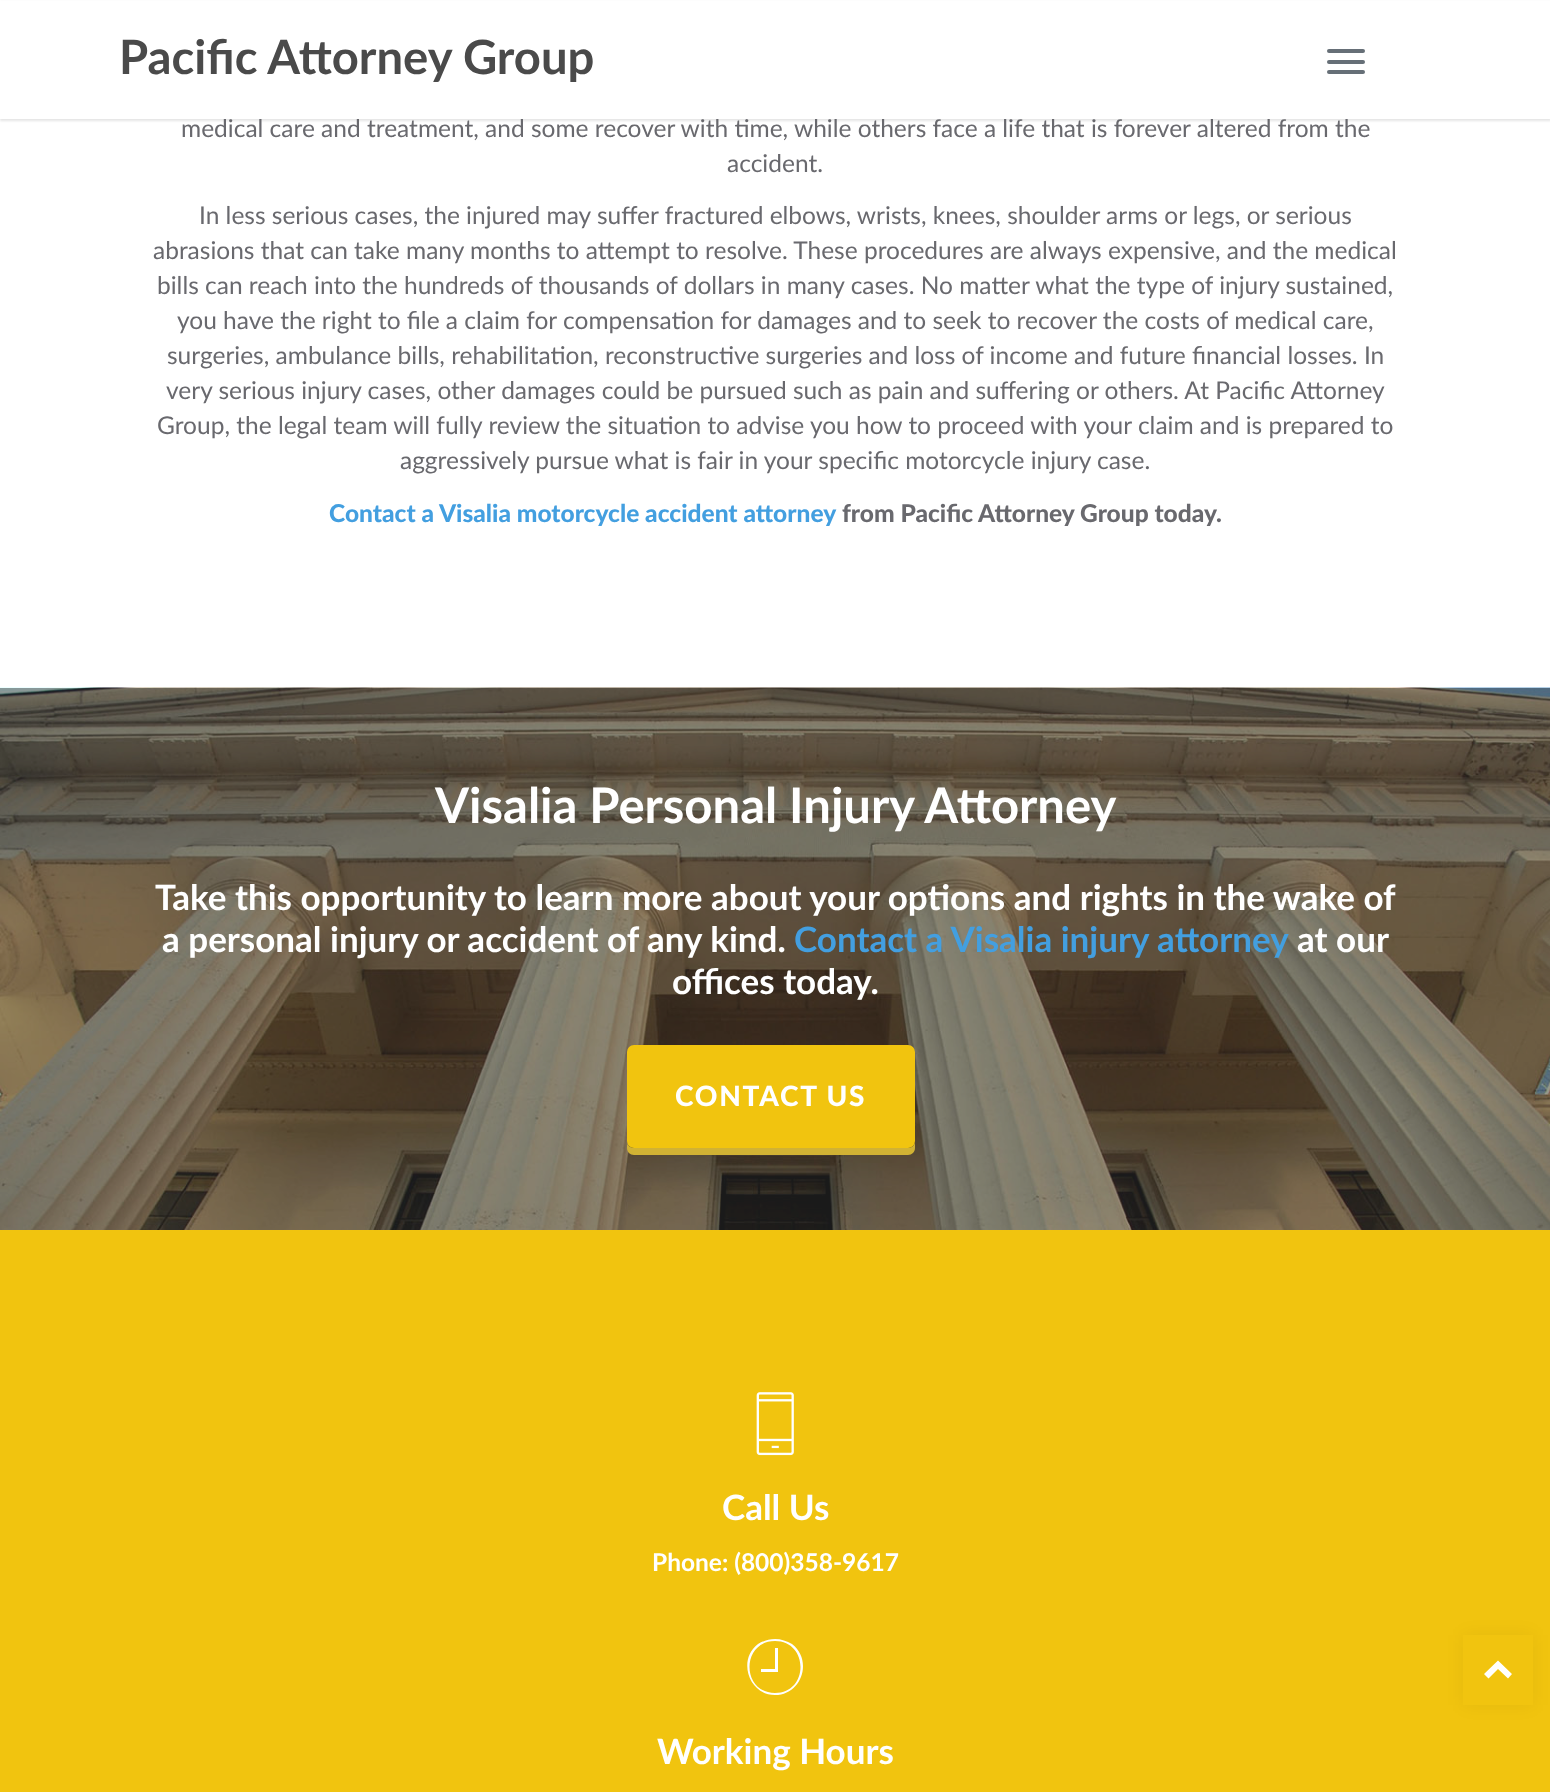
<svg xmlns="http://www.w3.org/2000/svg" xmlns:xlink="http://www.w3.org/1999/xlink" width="1550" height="1792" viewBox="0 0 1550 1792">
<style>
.cls-1{font:24.5px Lato;fill:#69696e}
.cls-2{font:bold 47.25px Lato;fill:#4a4a4a}
.cls-3{font:900 24.5px Lato;fill:#439fe0}
.cls-4{font:900 24.5px Lato;fill:#69696e}
.cls-5{font:bold 49px Lato;fill:#ffffff}
.cls-6{font:bold 35px Lato;fill:#ffffff}
.cls-7{font:bold 35px Lato;fill:#439fe0}
.cls-8{font:900 28px Lato;letter-spacing:1.75px;fill:#ffffff}
.cls-9{font:bold 24.5px Lato;fill:#ffffff}
</style>
<rect width="100%" height="100%" fill="#ffffff"/>
<rect fill="#000000" fill-opacity="0.1" filter="blur(1px)" x="0" y="2" width="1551" height="119"/>
<image xlink:href="image0.png" x="0" y="687" width="1550" height="543"/>
<path fill="#d1b234" d="M627 1144V1148C627 1152 630 1155 634 1155H908C912 1155 915 1152 915 1148V1143C914 1146 911 1148 908 1148H634C631 1148 628 1146 627 1144Z"/>
<rect fill="#f1c40f" stroke="#f1c40f" stroke-width="5" x="629.5" y="1047.5" width="283" height="98" rx="4.5"/>
<rect fill="#f1c40f" x="0" y="1230" width="1550" height="562"/>
<image xlink:href="image1.png" x="756" y="1392" width="38" height="64"/>
<path fill="#ffffff" d="M775 1639C769 1639 763 1641 758 1644C737 1660 749 1695 775 1695C802 1695 813 1660 792 1644C787 1641 781 1639 775 1639ZM775 1693C741 1693 741 1641 775 1641C809 1641 809 1693 775 1693ZM775 1669H761V1672H778V1648H775Z"/>
<rect fill="#000000" fill-opacity="0.05" filter="blur(9px)" x="1463" y="1635" width="70" height="70"/>
<rect fill="#f1c40f" x="1463" y="1635" width="70" height="70"/>
<path fill="#ffffff" d="M1498 1660.5L1512 1674L1508 1678.5L1498 1669L1488.5 1678.5L1484 1674Z"/>
<text class="cls-1" x="181" y="137">medical care and treatment, and some recover with time, while others face a life that is forever altered from the</text>
<rect fill="#ffffff" x="0" y="1" width="1550" height="118"/>
<rect fill="#666f77" x="1327" y="70" width="38" height="4" rx="2"/>
<rect fill="#666f77" x="1327" y="60" width="38" height="4" rx="2"/>
<rect fill="#666f77" x="1327" y="49" width="38" height="4" rx="2"/>
<text class="cls-2" x="119" y="74">Pacific Attorney Group</text>
<text class="cls-1" x="727" y="172">accident.</text>
<text class="cls-1" x="199" y="224">In less serious cases, the injured may suffer fractured elbows, wrists, knees, shoulder arms or legs, or serious</text>
<text class="cls-1" x="153" y="259">abrasions that can take many months to attempt to resolve. These procedures are always expensive, and the medical</text>
<text class="cls-1" x="157" y="294">bills can reach into the hundreds of thousands of dollars in many cases. No matter what the type of injury sustained,</text>
<text class="cls-1" x="177" y="329">you have the right to file a claim for compensation for damages and to seek to recover the costs of medical care,</text>
<text class="cls-1" x="167" y="364">surgeries, ambulance bills, rehabilitation, reconstructive surgeries and loss of income and future financial losses. In</text>
<text class="cls-1" x="166" y="399">very serious injury cases, other damages could be pursued such as pain and suffering or others. At Pacific Attorney</text>
<text class="cls-1" x="157" y="434">Group, the legal team will fully review the situation to advise you how to proceed with your claim and is prepared to</text>
<text class="cls-1" x="400" y="469">aggressively pursue what is fair in your specific motorcycle injury case.</text>
<text class="cls-3" x="329" y="522">Contact a Visalia motorcycle accident attorney</text>
<text class="cls-4" x="842" y="522">from Pacific Attorney Group today.</text>
<text class="cls-5" x="435" y="823">Visalia Personal Injury Attorney</text>
<text class="cls-6" x="155" y="910">Take this opportunity to learn more about your options and rights in the wake of</text>
<text class="cls-6" x="162" y="952">a personal injury or accident of any kind.</text>
<text class="cls-7" x="794" y="952">Contact a Visalia injury attorney</text>
<text class="cls-6" x="1297" y="952">at our</text>
<text class="cls-6" x="672" y="994">offices today.</text>
<text class="cls-8" x="675" y="1106">CONTACT US</text>
<text class="cls-6" x="722" y="1520">Call Us</text>
<text class="cls-9" x="652" y="1571">Phone: (800)358-9617</text>
<text class="cls-6" x="657" y="1764">Working Hours</text>
</svg>
